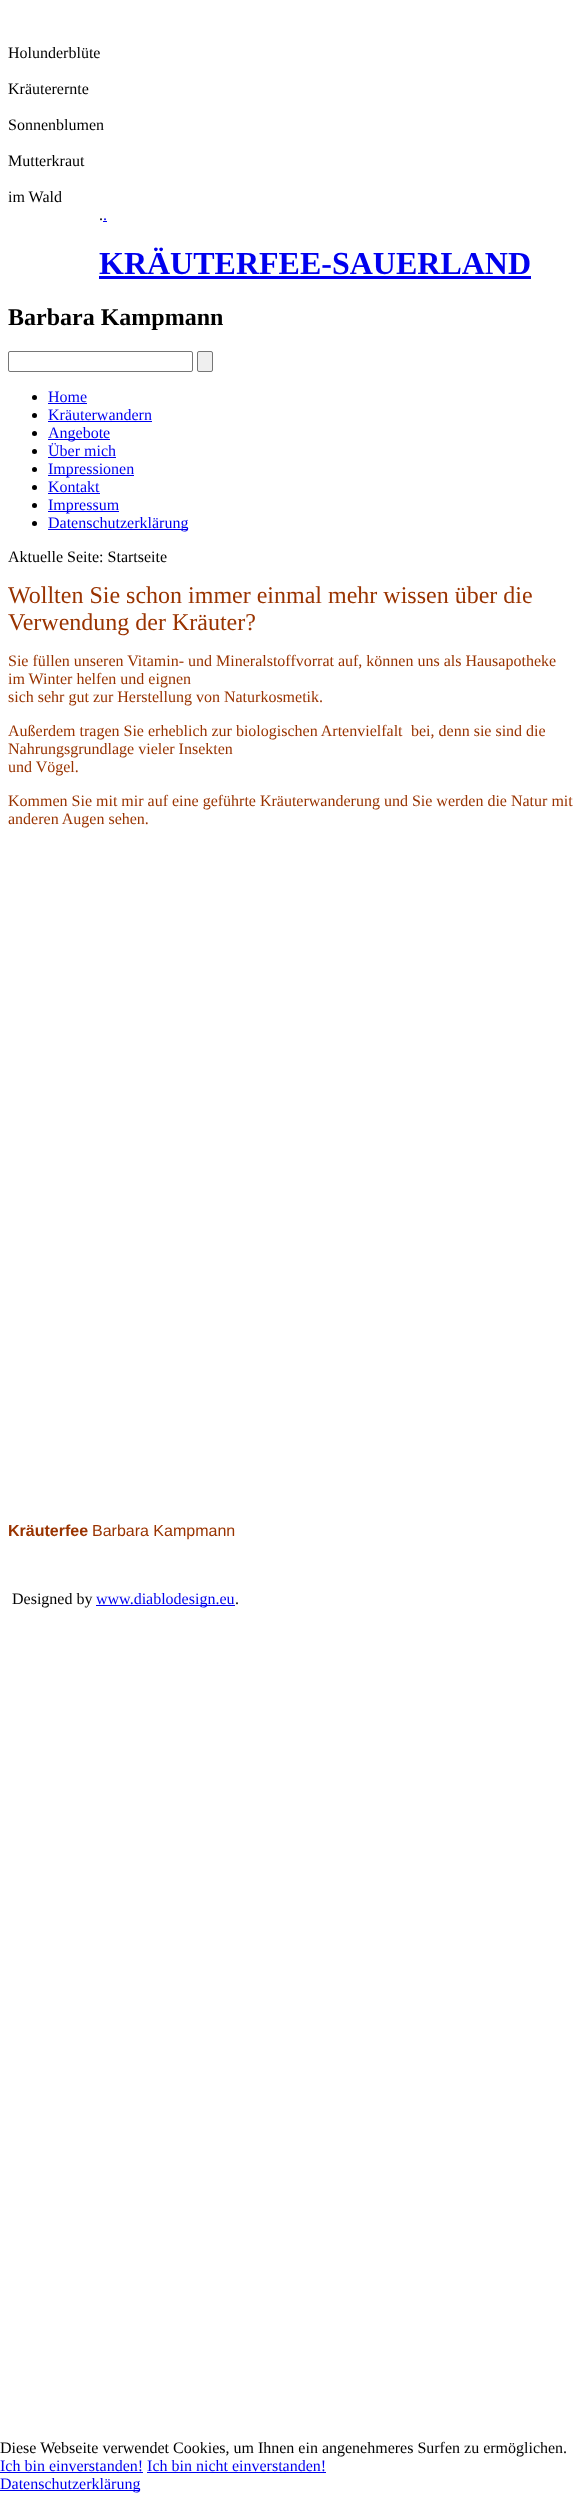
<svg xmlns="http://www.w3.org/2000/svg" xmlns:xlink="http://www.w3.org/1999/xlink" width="583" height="2493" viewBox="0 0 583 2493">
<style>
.cls-1{font:16px Liberation Serif;fill:#000000}
.cls-2{font:16px Liberation Serif;fill:#0000ee}
.cls-3{font:bold 32px Liberation Serif;fill:#0000ee}
.cls-4{font:bold 24px Liberation Serif;fill:#000000}
.cls-5{font:24px Liberation Serif;fill:#993300}
.cls-6{font:16px Liberation Serif;fill:#993300}
.cls-7{font:bold 16px Liberation Sans;fill:#993300}
.cls-8{font:16px Liberation Sans;fill:#993300}
</style>
<rect width="100%" height="100%" fill="#ffffff"/>
<rect fill="#0000ee" x="103" y="221" width="4" height="1"/>
<rect fill="#0000ee" x="99" y="276" width="432" height="3"/>
<rect fill="none" stroke="#767676" x="8.5" y="351.5" width="184" height="20" rx="1.5"/>
<rect fill="#efefef" stroke="#767676" x="197.5" y="351.5" width="15" height="20" rx="1.5"/>
<circle fill="#000000" cx="34.5" cy="397.5" r="2.5"/>
<rect fill="#0000ee" x="48" y="403" width="39" height="1"/>
<circle fill="#000000" cx="34.5" cy="415.5" r="2.5"/>
<rect fill="#0000ee" x="48" y="421" width="104" height="1"/>
<circle fill="#000000" cx="34.5" cy="433.5" r="2.5"/>
<rect fill="#0000ee" x="48" y="439" width="62" height="1"/>
<circle fill="#000000" cx="34.5" cy="451.5" r="2.5"/>
<rect fill="#0000ee" x="48" y="457" width="68" height="1"/>
<circle fill="#000000" cx="34.5" cy="469.5" r="2.5"/>
<rect fill="#0000ee" x="48" y="475" width="86" height="1"/>
<circle fill="#000000" cx="34.5" cy="487.5" r="2.5"/>
<rect fill="#0000ee" x="48" y="493" width="52" height="1"/>
<circle fill="#000000" cx="34.5" cy="505.5" r="2.5"/>
<rect fill="#0000ee" x="48" y="511" width="71" height="1"/>
<circle fill="#000000" cx="34.5" cy="523.5" r="2.5"/>
<rect fill="#0000ee" x="48" y="529" width="140" height="1"/>
<rect fill="#0000ee" x="96" y="1605" width="139" height="1"/>
<rect fill="#0000ee" x="0" y="2472" width="143" height="1"/>
<rect fill="#0000ee" x="147" y="2472" width="179" height="1"/>
<rect fill="#0000ee" x="0" y="2490" width="140" height="1"/>
<text class="cls-1" x="8" y="58">Holunderblüte</text>
<text class="cls-1" x="8" y="94">Kräuterernte</text>
<text class="cls-1" x="8" y="130">Sonnenblumen</text>
<text class="cls-1" x="8" y="166">Mutterkraut</text>
<text class="cls-1" x="8" y="202">im Wald</text>
<text class="cls-1" x="99" y="220">.</text>
<text class="cls-2" x="103" y="220">.</text>
<text class="cls-3" x="99" y="274">KRÄUTERFEE-SAUERLAND</text>
<text class="cls-4" x="8" y="325">Barbara Kampmann</text>
<text class="cls-2"><tspan x="48" y="402">Home</tspan><tspan x="48" y="420">Kräuterwandern</tspan><tspan x="48" y="438">Angebote</tspan><tspan x="48" y="456">Über mich</tspan><tspan x="48" y="474">Impressionen</tspan><tspan x="48" y="492">Kontakt</tspan><tspan x="48" y="510">Impressum</tspan><tspan x="48" y="528">Datenschutzerklärung</tspan></text>
<text class="cls-1" x="8" y="562">Aktuelle Seite: Startseite</text>
<text class="cls-5"><tspan x="8" y="603">Wollten Sie schon immer einmal mehr wissen über die</tspan><tspan x="8" y="630">Verwendung der Kräuter?</tspan></text>
<text class="cls-6"><tspan x="8" y="666">Sie füllen unseren Vitamin- und Mineralstoffvorrat auf, können uns als Hausapotheke</tspan><tspan x="8" y="684">im Winter helfen und eignen</tspan><tspan x="8" y="702">sich sehr gut zur Herstellung von Naturkosmetik.</tspan></text>
<text class="cls-6" x="8" y="736">Außerdem tragen Sie erheblich zur biologischen Artenvielfalt</text>
<text class="cls-6" x="411" y="736">bei, denn sie sind die</text>
<text class="cls-6"><tspan x="8" y="754">Nahrungsgrundlage vieler Insekten</tspan><tspan x="8" y="772">und Vögel.</tspan></text>
<text class="cls-6"><tspan x="8" y="806">Kommen Sie mit mir auf eine geführte Kräuterwanderung und Sie werden die Natur mit</tspan><tspan x="8" y="824">anderen Augen sehen.</tspan></text>
<text class="cls-7" x="8" y="1536">Kräuterfee</text>
<text class="cls-8" x="92" y="1536">Barbara Kampmann</text>
<text class="cls-1" x="12" y="1604">Designed by</text>
<text class="cls-2" x="96" y="1604">www.diablodesign.eu</text>
<text class="cls-1" x="235" y="1604">.</text>
<text class="cls-1" x="0" y="2453">Diese Webseite verwendet Cookies, um Ihnen ein angenehmeres Surfen zu ermöglichen.</text>
<text class="cls-2"><tspan x="0" y="2471">Ich bin einverstanden! Ich bin nicht einverstanden!</tspan><tspan x="0" y="2489">Datenschutzerklärung</tspan></text>
</svg>
